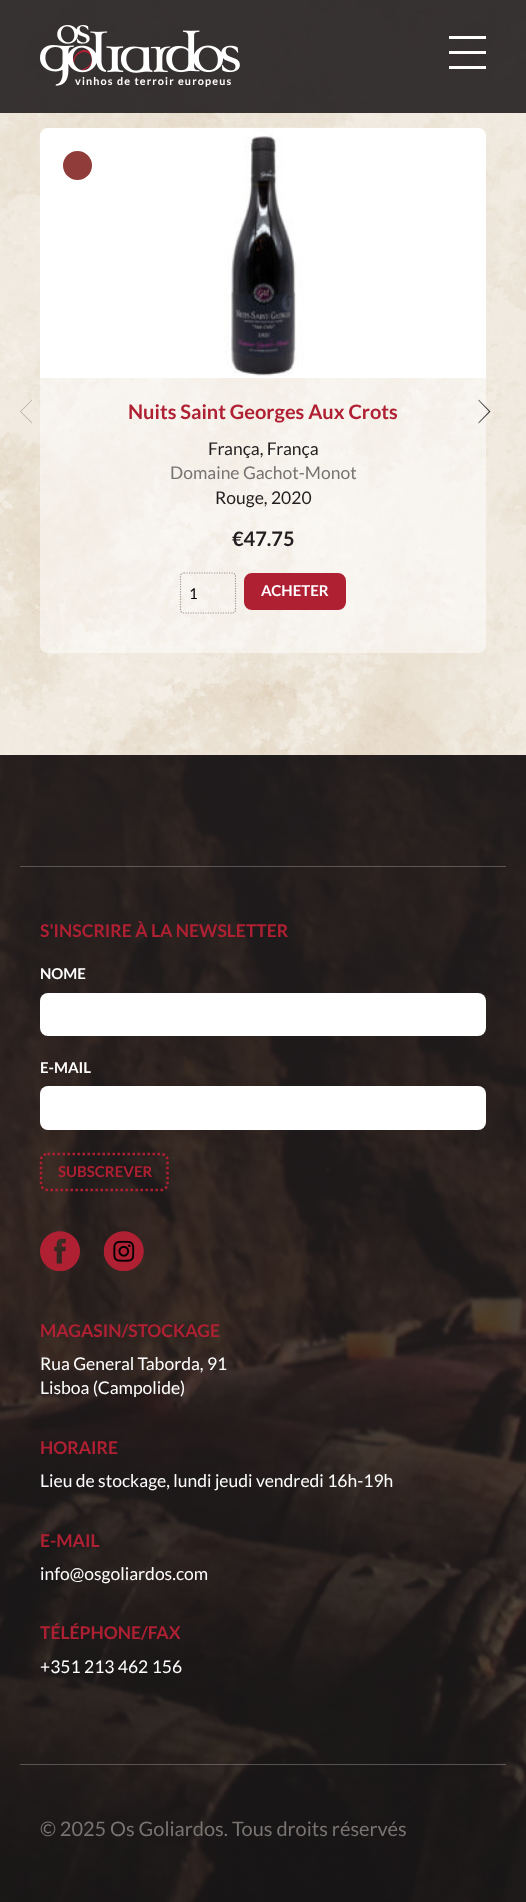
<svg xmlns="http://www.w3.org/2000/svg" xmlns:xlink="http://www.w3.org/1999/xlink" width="526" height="1902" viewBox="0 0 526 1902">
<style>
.cls-1{font:bold 10.8px Lato;letter-spacing:1.15px;fill:#ffffff}
.cls-2{font:bold 20px Lato;fill:#b02033}
.cls-3{font:17.5px Lato;fill:#221e1f}
.cls-4{font:17.5px Lato;fill:#777371}
.cls-5{font:bold 20px Lato;fill:#221e1f}
.cls-6{font:15px Lato;fill:#000000}
.cls-7{font:bold 15px Lato;fill:#ffffff}
.cls-8{font:bold 17.5px Lato;fill:#b02033}
.cls-9{font:bold 15px Lato;fill:#b02033}
.cls-10{font:17.5px Lato;fill:#ffffff}
.cls-11{font:20px Lato;fill:#777371}
</style>
<rect width="100%" height="100%" fill="#ffffff"/>
<image xlink:href="image0.png" x="0" y="0" width="526" height="755"/>
<rect fill="#221e1f" fill-opacity="0.9" x="0" y="0" width="526" height="113"/>
<rect fill="#ffffff" x="449" y="36" width="37" height="3"/>
<rect fill="#ffffff" x="449" y="51" width="37" height="3"/>
<rect fill="#ffffff" x="449" y="66" width="37" height="3"/>
<image xlink:href="image1.png" x="40" y="25" width="200" height="61"/>
<path fill="#b3ada6" d="M20 411.5L32 423.5V422.5L21 411.5L32 400.5V399.5Z"/>
<path fill="#ffffff" d="M48 128H478C482.5 128 486 131.5 486 136V378H40V136C40 131.5 43.5 128 48 128Z"/>
<image xlink:href="image2.png" x="174" y="127" width="172" height="249"/>
<circle fill="#903c3a" stroke="#ffffff" stroke-width="3" cx="77.5" cy="165.5" r="16"/>
<path fill="#ffffff" fill-opacity="0.5" d="M40 378H486V645C486 649.5 482.5 653 478 653H48C43.5 653 40 649.5 40 645Z"/>
<path fill="none" stroke="#221e1f" stroke-opacity="0.4" stroke-width="1.2" stroke-dasharray="1.25 1.25" d="M184 573H232.5C234 573 235.5 574.5 235.5 576V610C235.5 611.5 234 613 232.5 613H184C182 613 180.5 611.5 180.5 610V576C180.5 574.5 182 573 184 573Z"/>
<rect fill="#b02033" stroke="#b02033" stroke-width="3" x="245.5" y="574.5" width="99" height="34" rx="6.5"/>
<path fill="#221e1f" fill-opacity="0.9" d="M490.5 411.5L478.5 399.5V400.5L489 411.5L478.5 422.5V423.5Z"/>
<image xlink:href="image3.png" x="0" y="755" width="526" height="1147"/>
<rect fill="#ffffff" fill-opacity="0.25" x="20" y="866" width="486" height="1"/>
<rect fill="#ffffff" x="40" y="993" width="446" height="43" rx="8"/>
<rect fill="#ffffff" x="40" y="1086" width="446" height="44" rx="8"/>
<path fill="none" stroke="#b02033" stroke-width="2.5" stroke-dasharray="2.5 2.5" d="M47.5 1154H161C164.5 1154 167.5 1156.5 167.5 1160V1184C167.5 1187 164.5 1190 161 1190H47.5C44 1190 41 1187 41 1184V1160C41 1156.5 44 1154 47.5 1154Z"/>
<image xlink:href="image4.png" x="40" y="1231" width="40" height="40"/>
<image xlink:href="image5.png" x="104" y="1231" width="40" height="40"/>
<rect fill="#ffffff" fill-opacity="0.25" x="20" y="1764" width="486" height="1"/>
<text class="cls-1" x="75" y="85">vinhos de terroir europeus</text>
<text class="cls-2" x="128" y="419">Nuits Saint Georges Aux Crots</text>
<text class="cls-3" x="208" y="455">França, França</text>
<text class="cls-4" x="170" y="479">Domaine Gachot-Monot</text>
<text class="cls-3" x="215" y="504">Rouge, 2020</text>
<text class="cls-5" x="232" y="546">€47.75</text>
<text class="cls-6" x="189" y="599">1</text>
<text class="cls-7" x="261" y="596">ACHETER</text>
<text class="cls-8" x="40" y="937">S'INSCRIRE À LA NEWSLETTER</text>
<text class="cls-7" x="40" y="979">NOME</text>
<text class="cls-7" x="40" y="1073">E-MAIL</text>
<text class="cls-9" x="58" y="1177">SUBSCREVER</text>
<text class="cls-8" x="40" y="1337">MAGASIN/STOCKAGE</text>
<text class="cls-10"><tspan x="40" y="1370">Rua General Taborda, 91</tspan><tspan x="40" y="1394">Lisboa (Campolide)</tspan></text>
<text class="cls-8" x="40" y="1454">HORAIRE</text>
<text class="cls-10" x="40" y="1487">Lieu de stockage, lundi jeudi vendredi 16h-19h</text>
<text class="cls-8" x="40" y="1547">E-MAIL</text>
<text class="cls-10" x="40" y="1580">info@osgoliardos.com</text>
<text class="cls-8" x="40" y="1639">TÉLÉPHONE/FAX</text>
<text class="cls-10" x="40" y="1673">+351 213 462 156</text>
<text class="cls-11" x="40" y="1836">© 2025 Os Goliardos. Tous droits réservés</text>
</svg>
